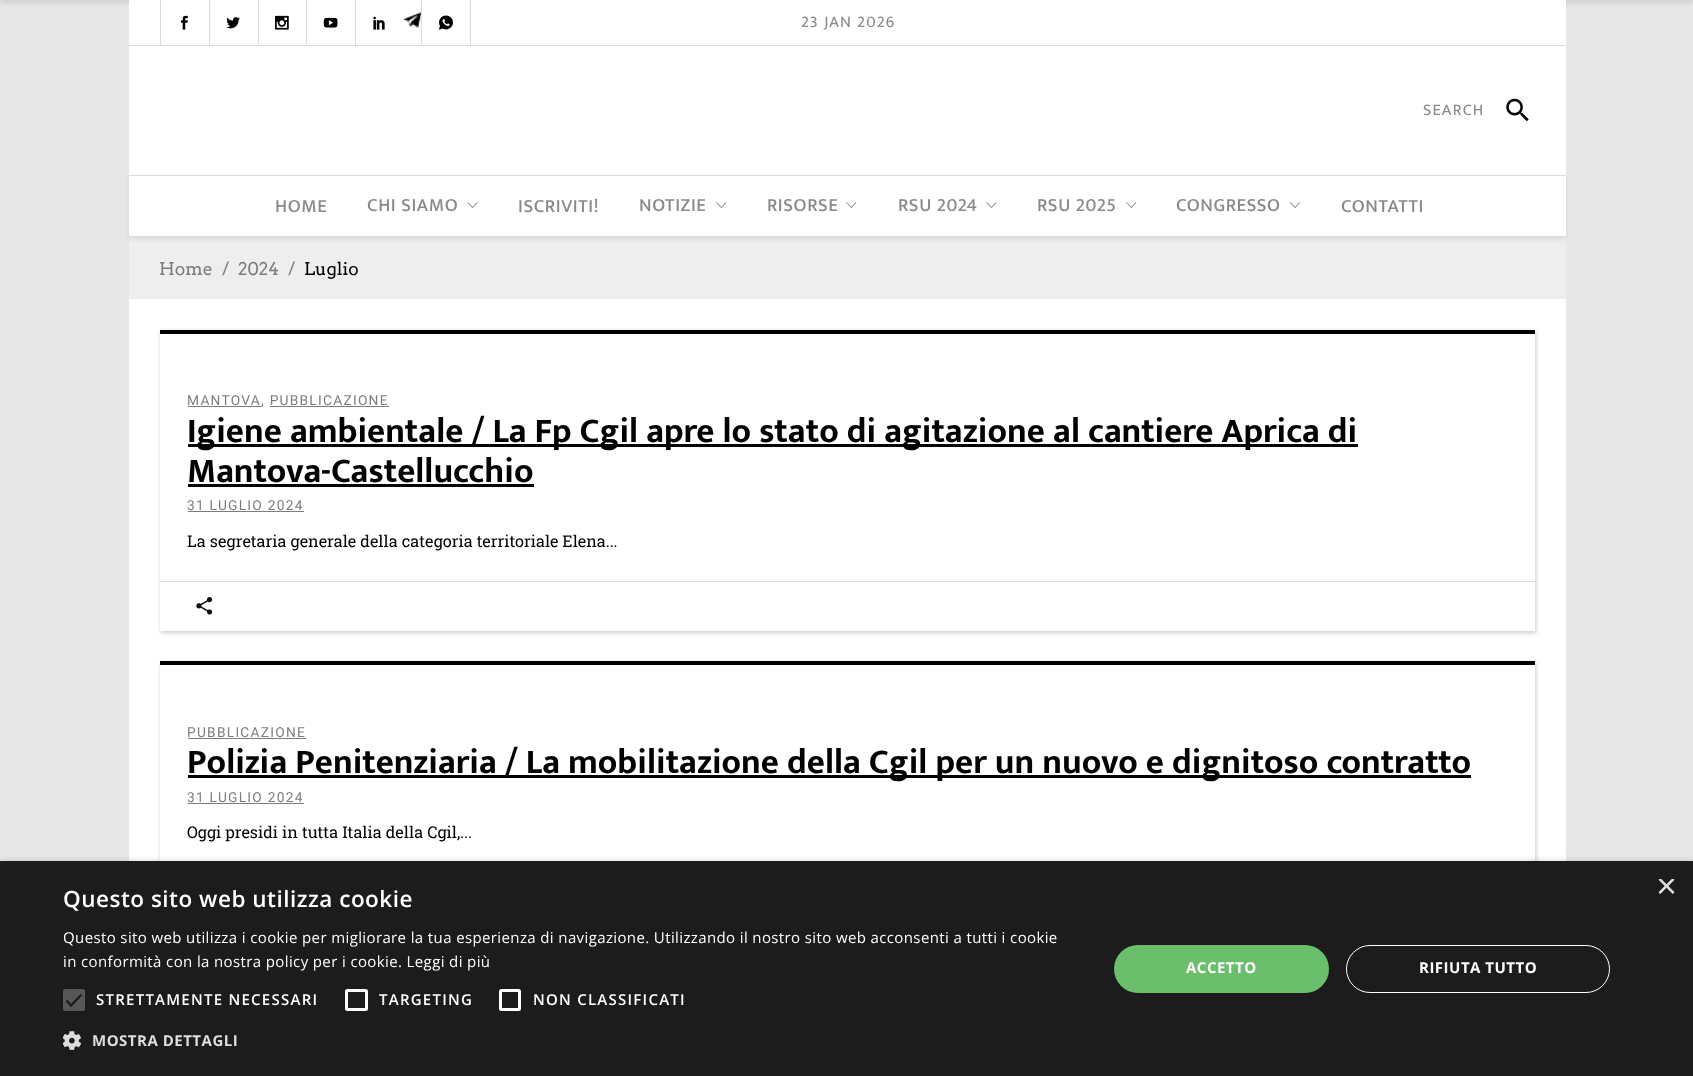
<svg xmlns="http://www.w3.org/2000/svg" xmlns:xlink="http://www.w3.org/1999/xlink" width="1693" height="1076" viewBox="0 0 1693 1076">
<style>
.cls-1{font:16.25px Ek Mukta;letter-spacing:1.25px;fill:#8b8a8b}
.cls-2{font:500 18.75px Ek Mukta;letter-spacing:0.6px;fill:#8b8a8b}
.cls-3{font:17.5px Arvo;fill:#7e7c7c}
.cls-4{font:17.5px Arvo;fill:#020202}
.cls-5{font:13.75px Roboto;letter-spacing:1.25px;fill:#7e7c7c}
.cls-6{font:bold 35px Ek Mukta;fill:#020202}
.cls-7{font:16.25px Roboto Slab;fill:#020202}
.cls-8{font:36px Liberation Sans;fill:#dddddd}
.cls-9{font:600 22.5px Open Sans;letter-spacing:0.5px;fill:#ffffff}
.cls-10{font:15px Open Sans;letter-spacing:0.38px;fill:#ffffff}
.cls-11{font:600 15px Open Sans;letter-spacing:1.25px;fill:#ffffff}
.cls-12{font:bold 15px Open Sans;letter-spacing:0.5px;fill:#dddddd}
.cls-13{font:bold 15px Open Sans;letter-spacing:0.5px;fill:#ffffff}
</style>
<defs>
<clipPath id="clip1"><path d="M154 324H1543V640H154ZM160 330H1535V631H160Z" clip-rule="evenodd"/></clipPath>
<clipPath id="clip2"><rect x="1656" y="879" width="19" height="19"/></clipPath>
</defs>
<rect width="100%" height="100%" fill="#e8e7e7"/>
<rect fill="#000000" fill-opacity="0.09" filter="blur(2px)" x="0" y="-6" width="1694" height="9"/>
<rect fill="#ffffff" x="129" y="0" width="1437" height="45"/>
<rect fill="#dddcdc" x="129" y="45" width="1437" height="1"/>
<rect fill="#dddcdc" x="160" y="0" width="1" height="46"/>
<image xlink:href="image0.png" x="180" y="15" width="8" height="15"/>
<rect fill="#dddcdc" x="209" y="0" width="1" height="46"/>
<image xlink:href="image1.png" x="226" y="17" width="14" height="12"/>
<rect fill="#dddcdc" x="258" y="0" width="1" height="46"/>
<image xlink:href="image2.png" x="275" y="15" width="14" height="15"/>
<rect fill="#dddcdc" x="306" y="0" width="1" height="46"/>
<image xlink:href="image3.png" x="323" y="17" width="15" height="11"/>
<rect fill="#dddcdc" x="355" y="0" width="1" height="46"/>
<image xlink:href="image4.png" x="373" y="16" width="12" height="14"/>
<image xlink:href="image5.png" x="403" y="12" width="18" height="16"/>
<rect fill="#dddcdc" x="470" y="0" width="1" height="46"/>
<rect fill="#dddcdc" x="421" y="0" width="1" height="46"/>
<image xlink:href="image6.png" x="438" y="15" width="15" height="15"/>
<rect fill="#ffffff" x="129" y="46" width="1437" height="129"/>
<image xlink:href="image7.png" x="1506" y="98" width="23" height="24"/>
<rect fill="#eeeeee" x="129" y="236" width="1437" height="63"/>
<rect fill="#000000" fill-opacity="0.09" filter="blur(2px)" x="129" y="178" width="1437" height="61"/>
<rect fill="#ffffff" x="129" y="176" width="1437" height="60"/>
<rect fill="#dddcdc" x="129" y="175" width="1437" height="1"/>
<image xlink:href="image8.png" x="467" y="202" width="11" height="7"/>
<image xlink:href="image9.png" x="716" y="202" width="11" height="7"/>
<image xlink:href="image9.png" x="846" y="202" width="11" height="7"/>
<image xlink:href="image9.png" x="986" y="202" width="11" height="7"/>
<image xlink:href="image9.png" x="1126" y="202" width="11" height="7"/>
<image xlink:href="image10.png" x="1290" y="202" width="10" height="6"/>
<rect fill="#ffffff" x="129" y="299" width="1437" height="562"/>
<g clip-path="url(#clip1)">
<rect fill="#cecccc" filter="blur(2px)" x="161" y="331" width="1375" height="302"/>
</g>
<rect fill="#000000" x="160" y="330" width="1375" height="4"/>
<rect fill="#7e7c7c" x="188" y="406" width="73" height="1"/>
<rect fill="#7e7c7c" x="270" y="406" width="119" height="1"/>
<rect fill="#020202" x="188" y="444" width="1170" height="3"/>
<rect fill="#020202" x="188" y="484" width="346" height="3"/>
<rect fill="#7e7c7c" x="188" y="511" width="116" height="1"/>
<rect fill="#dddcdc" x="160" y="581" width="1375" height="1"/>
<image xlink:href="image11.png" x="196" y="597" width="17" height="18"/>
<rect fill="#cecccc" filter="blur(2px)" x="161" y="663" width="1375" height="261"/>
<rect fill="#ffffff" x="160" y="665" width="1375" height="196"/>
<rect fill="#000000" x="160" y="661" width="1375" height="4"/>
<rect fill="#7e7c7c" x="188" y="738" width="118" height="1"/>
<rect fill="#020202" x="188" y="775" width="1283" height="3"/>
<rect fill="#7e7c7c" x="188" y="803" width="116" height="1"/>
<rect fill="#000000" fill-opacity="0.35" filter="blur(5px)" x="1" y="864" width="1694" height="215"/>
<rect fill="#1c1c1c" x="0" y="861" width="1693" height="215"/>
<rect fill="#575757" x="63" y="989" width="22" height="22" rx="2.5"/>
<path fill="none" stroke="#1c1c1c" stroke-width="2.3" d="M66.5 1000.5L71 1005.5L81.5 994.5"/>
<rect fill="none" stroke="#ffffff" stroke-width="3" x="346.5" y="990.5" width="20" height="19" rx="1"/>
<rect fill="none" stroke="#ffffff" stroke-width="3" x="500.5" y="990.5" width="19" height="19" rx="1"/>
<image xlink:href="image12.png" x="63" y="1031" width="18" height="19"/>
<rect fill="#6bbe6b" x="1114" y="945" width="215" height="48" rx="24"/>
<rect fill="none" stroke="#ffffff" x="1346.5" y="945.5" width="263" height="47" rx="23.5"/>
<text class="cls-1" x="801" y="27">23 JAN 2026</text>
<text class="cls-1" x="1423" y="115">SEARCH</text>
<text class="cls-2" x="275" y="212">HOME</text>
<text class="cls-2" x="367" y="211">CHI SIAMO</text>
<text class="cls-2" x="518" y="212">ISCRIVITI!</text>
<text class="cls-2" x="639" y="211">NOTIZIE</text>
<text class="cls-2" x="767" y="211">RISORSE</text>
<text class="cls-2" x="898" y="211">RSU 2024</text>
<text class="cls-2" x="1037" y="211">RSU 2025</text>
<text class="cls-2" x="1176" y="211">CONGRESSO</text>
<text class="cls-2" x="1341" y="212">CONTATTI</text>
<text class="cls-3" x="159" y="275">Home</text>
<text class="cls-3" x="222" y="275">/</text>
<text class="cls-3" x="238" y="275">2024</text>
<text class="cls-3" x="288" y="275">/</text>
<text class="cls-4" x="304" y="275">Luglio</text>
<text class="cls-5" x="187" y="405">MANTOVA, PUBBLICAZIONE</text>
<text class="cls-6"><tspan x="187" y="442">Igiene ambientale / La Fp Cgil apre lo stato di agitazione al cantiere Aprica di</tspan><tspan x="187" y="482">Mantova-Castellucchio</tspan></text>
<text class="cls-5" x="187" y="510">31 LUGLIO 2024</text>
<text class="cls-7" x="187" y="547">La segretaria generale della categoria territoriale Elena...</text>
<text class="cls-5" x="187" y="737">PUBBLICAZIONE</text>
<text class="cls-6" x="187" y="773">Polizia Penitenziaria / La mobilitazione della Cgil per un nuovo e dignitoso contratto</text>
<text class="cls-5" x="187" y="802">31 LUGLIO 2024</text>
<text class="cls-7" x="187" y="838">Oggi presidi in tutta Italia della Cgil,...</text>
<g clip-path="url(#clip2)">
<text class="cls-8" x="1656" y="898">×</text>
</g>
<text class="cls-9" x="63" y="907">Questo sito web utilizza cookie</text>
<text class="cls-10"><tspan x="63" y="943">Questo sito web utilizza i cookie per migliorare la tua esperienza di navigazione. Utilizzando il nostro sito web acconsenti a tutti i cookie</tspan><tspan x="63" y="967">in conformità con la nostra policy per i cookie. Leggi di più</tspan></text>
<text class="cls-11" x="96" y="1005">STRETTAMENTE NECESSARI</text>
<text class="cls-11" x="379" y="1005">TARGETING</text>
<text class="cls-11" x="533" y="1005">NON CLASSIFICATI</text>
<text class="cls-12" x="92" y="1046">MOSTRA DETTAGLI</text>
<text class="cls-13" x="1186" y="973">ACCETTO</text>
<text class="cls-13" x="1419" y="973">RIFIUTA TUTTO</text>
</svg>
